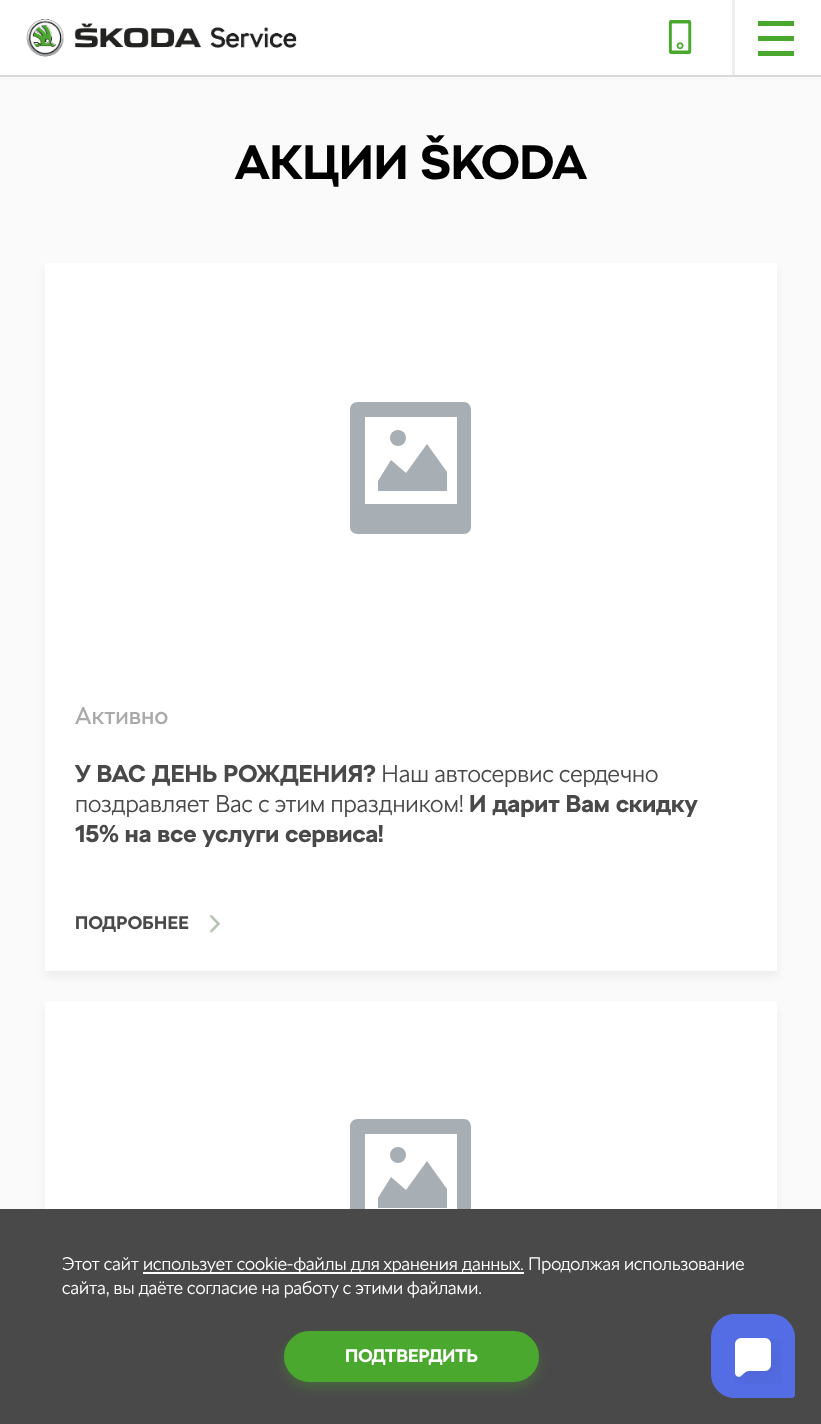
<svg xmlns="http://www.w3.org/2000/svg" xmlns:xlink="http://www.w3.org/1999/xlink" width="821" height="1424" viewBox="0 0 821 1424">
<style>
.cls-1{font:bold 48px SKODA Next;fill:#000000}
.cls-2{font:24px SKODA Next;fill:#aaaaaa}
.cls-3{font:bold 24px SKODA Next;fill:#494949}
.cls-4{font:300 24px SKODA Next;fill:#494949}
.cls-5{font:bold 18px SKODA Next;letter-spacing:0.25px;fill:#494949}
.cls-6{font:300 18px SKODA Next;fill:#ffffff}
.cls-7{font:bold 18px SKODA Next;fill:#ffffff}
</style>
<rect width="100%" height="100%" fill="#ffffff"/>
<rect fill="#dadada" x="0" y="75" width="821" height="2"/>
<image xlink:href="image0.png" x="26" y="19" width="271" height="38"/>
<image xlink:href="image1.png" x="668" y="20" width="24" height="35"/>
<rect fill="#eeeeee" x="732" y="0" width="3" height="75"/>
<rect fill="#4ba82e" x="758" y="21" width="36" height="5"/>
<rect fill="#4ba82e" x="758" y="36" width="36" height="5"/>
<rect fill="#4ba82e" x="758" y="51" width="36" height="5"/>
<rect fill="#fafafa" x="0" y="77" width="821" height="1132"/>
<rect fill="#000000" fill-opacity="0.05" filter="blur(4px)" x="45" y="269" width="732" height="708"/>
<rect fill="#ffffff" x="45" y="263" width="732" height="708"/>
<path fill="#a7aeb4" d="M447 472L427 444L406 473L391 460L378 481V491H447Z"/>
<circle fill="#a7aeb4" cx="398" cy="438" r="8"/>
<path fill="#a7aeb4" d="M464 402H358C353 402 350 405 350 410V527C350 531 353 534 358 534H464C468 534 471 531 471 527V410C471 405 468 402 464 402ZM457 417V504H365V417Z"/>
<image xlink:href="image2.png" x="209" y="915" width="12" height="18"/>
<rect fill="#000000" fill-opacity="0.05" filter="blur(4px)" x="45" y="1008" width="732" height="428"/>
<rect fill="#ffffff" x="45" y="1002" width="732" height="207"/>
<path fill="#a7aeb4" d="M447 1189L427 1161L406 1190L391 1177L378 1198V1208H447Z"/>
<circle fill="#a7aeb4" cx="398" cy="1155" r="8"/>
<path fill="#a7aeb4" d="M464 1119H358C353 1119 350 1122 350 1127V1244C350 1248 353 1251 358 1251H464C468 1251 471 1248 471 1244V1127C471 1122 468 1119 464 1119ZM457 1134V1221H365V1134Z"/>
<rect fill="#494949" x="0" y="1209" width="821" height="215"/>
<rect fill="#ffffff" x="143" y="1272" width="381" height="2"/>
<rect fill="#4ba82e" fill-opacity="0.3" filter="blur(6px)" x="284" y="1337" width="255" height="51" rx="25.5"/>
<rect fill="#4ba82e" stroke="#4ba82e" stroke-width="3" x="285.5" y="1332.5" width="252" height="48" rx="24"/>
<path fill="#546de5" d="M735 1314H771C784.5 1314 795 1324.5 795 1338V1395C795 1396.5 793.5 1398 792 1398H735C721.5 1398 711 1387.5 711 1374V1338C711 1324.5 721.5 1314 735 1314Z"/>
<image xlink:href="image3.png" x="735" y="1338" width="47" height="46"/>
<text class="cls-1" x="235" y="179">АКЦИИ ŠKODA</text>
<text class="cls-2" x="75" y="724">Активно</text>
<text class="cls-3" x="75" y="782">У ВАС ДЕНЬ РОЖДЕНИЯ?</text>
<text class="cls-4" x="381" y="782">Наш автосервис сердечно</text>
<text class="cls-4" x="75" y="812">поздравляет Вас с этим праздником!</text>
<text class="cls-3" x="469" y="812">И дарит Вам скидку</text>
<text class="cls-3" x="75" y="842">15% на все услуги сервиса!</text>
<text class="cls-5" x="75" y="929">ПОДРОБНЕЕ</text>
<text class="cls-6" x="62" y="1270">Этот сайт</text>
<text class="cls-6" x="143" y="1270">использует cookie-файлы для хранения данных. Продолжая использование</text>
<text class="cls-6" x="62" y="1294">сайта, вы даёте согласие на работу с этими файлами.</text>
<text class="cls-7" x="345" y="1362">ПОДТВЕРДИТЬ</text>
</svg>
